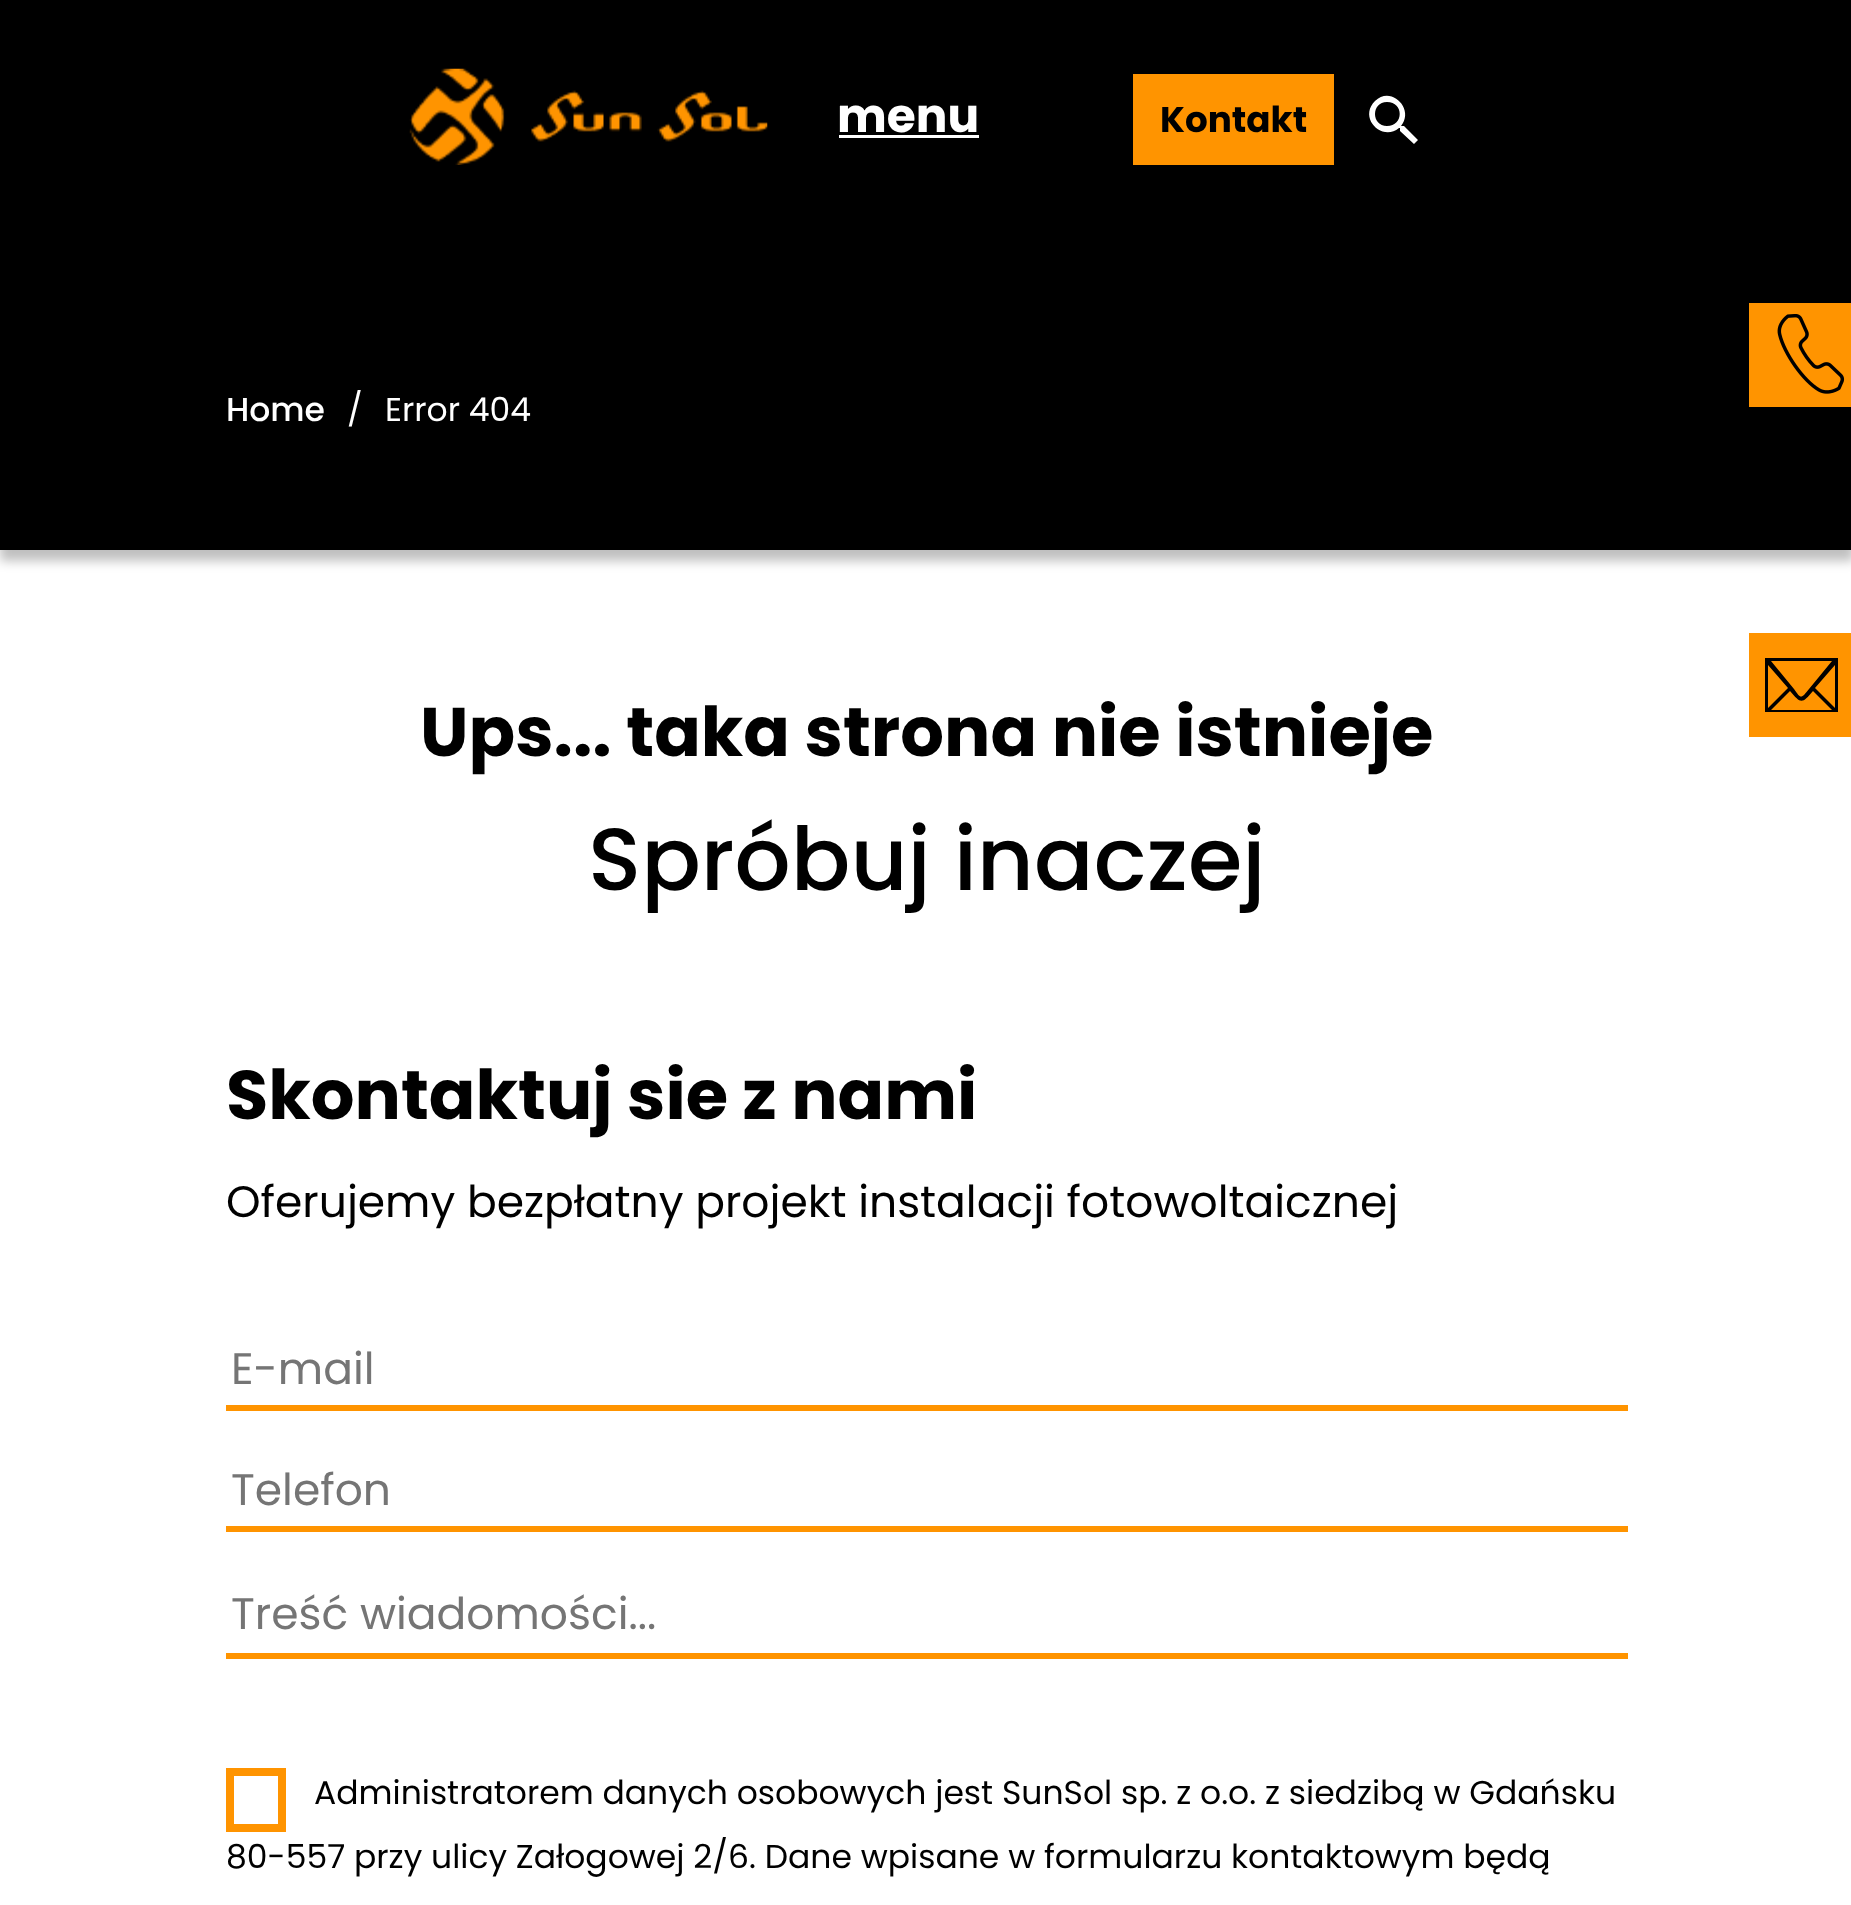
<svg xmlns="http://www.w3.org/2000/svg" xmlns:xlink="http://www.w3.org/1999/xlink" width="1851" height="1905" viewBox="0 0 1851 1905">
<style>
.cls-1{font:bold 47px Poppins;fill:#ffffff}
.cls-2{font:bold 35.75px Poppins;fill:#000000}
.cls-3{font:500 33px Poppins;fill:#ffffff}
.cls-4{font:33px Poppins;fill:#ffffff}
.cls-5{font:bold 68.75px Poppins;fill:#000000}
.cls-6{font:500 88px Poppins;fill:#000000}
.cls-7{font:44px Poppins;fill:#000000}
.cls-8{font:44px Poppins;fill:#757575}
.cls-9{font:33px Poppins;fill:#000000}
</style>
<defs>
<clipPath id="clip1"><rect x="1763" y="657" width="77" height="55"/></clipPath>
</defs>
<rect width="100%" height="100%" fill="#ffffff"/>
<rect fill="#000000" fill-opacity="0.25" filter="blur(5.5px)" x="0" y="11" width="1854" height="550"/>
<rect fill="#000000" x="0" y="0" width="1851" height="550"/>
<image xlink:href="image0.png" x="409" y="68" width="359" height="97"/>
<rect fill="#ffffff" x="839" y="135" width="140" height="3"/>
<rect fill="#ff9400" x="1133" y="74" width="201" height="91"/>
<path fill="#ffffff" d="M1404 126H1402H1401C1415 109 1391 85 1375 101C1358 118 1382 142 1399 128H1400V131L1414 144L1418 140ZM1387 126C1371 126 1371 102 1387 102C1404 102 1404 126 1387 126Z"/>
<rect fill="#ff9400" x="1749" y="303" width="102" height="104"/>
<image xlink:href="image1.png" x="1777" y="314" width="68" height="80"/>
<rect fill="#ff9400" x="1749" y="633" width="102" height="104"/>
<g clip-path="url(#clip1)">
<path fill="#000000" fill-rule="evenodd" d="M1835 658H1765V714H1838V658ZM1835 708L1815 688L1835 665ZM1768 665L1788 688L1768 708ZM1771 661H1832L1809 689C1801 699 1801 699 1794 689ZM1771 710L1790 691C1801 704 1802 704 1813 691L1832 710Z"/>
</g>
<rect fill="#ff9400" x="226" y="1405" width="1402" height="6"/>
<rect fill="#ff9400" x="226" y="1526" width="1402" height="6"/>
<rect fill="#ff9400" x="226" y="1653" width="1402" height="6"/>
<rect fill="none" stroke="#ff9400" stroke-width="8" x="230" y="1772" width="52" height="56"/>
<text class="cls-1" x="837" y="132">menu</text>
<text class="cls-2" x="1160" y="132">Kontakt</text>
<text class="cls-3" x="226" y="421">Home</text>
<text class="cls-4" x="347" y="421">/</text>
<text class="cls-4" x="385" y="421">Error 404</text>
<text class="cls-5" x="420" y="756">Ups... taka strona nie istnieje</text>
<text class="cls-6" x="588" y="890">Spróbuj inaczej</text>
<text class="cls-5" x="226" y="1119">Skontaktuj sie z nami</text>
<text class="cls-7" x="226" y="1217">Oferujemy bezpłatny projekt instalacji fotowoltaicznej</text>
<text class="cls-8" x="231" y="1384">E-mail</text>
<text class="cls-8" x="231" y="1505">Telefon</text>
<text class="cls-8" x="231" y="1629">Treść wiadomości...</text>
<text class="cls-9" x="314" y="1804">Administratorem danych osobowych jest SunSol sp. z o.o. z siedzibą w Gdańsku</text>
<text class="cls-9" x="226" y="1868">80-557 przy ulicy Załogowej 2/6. Dane wpisane w formularzu kontaktowym będą</text>
</svg>
